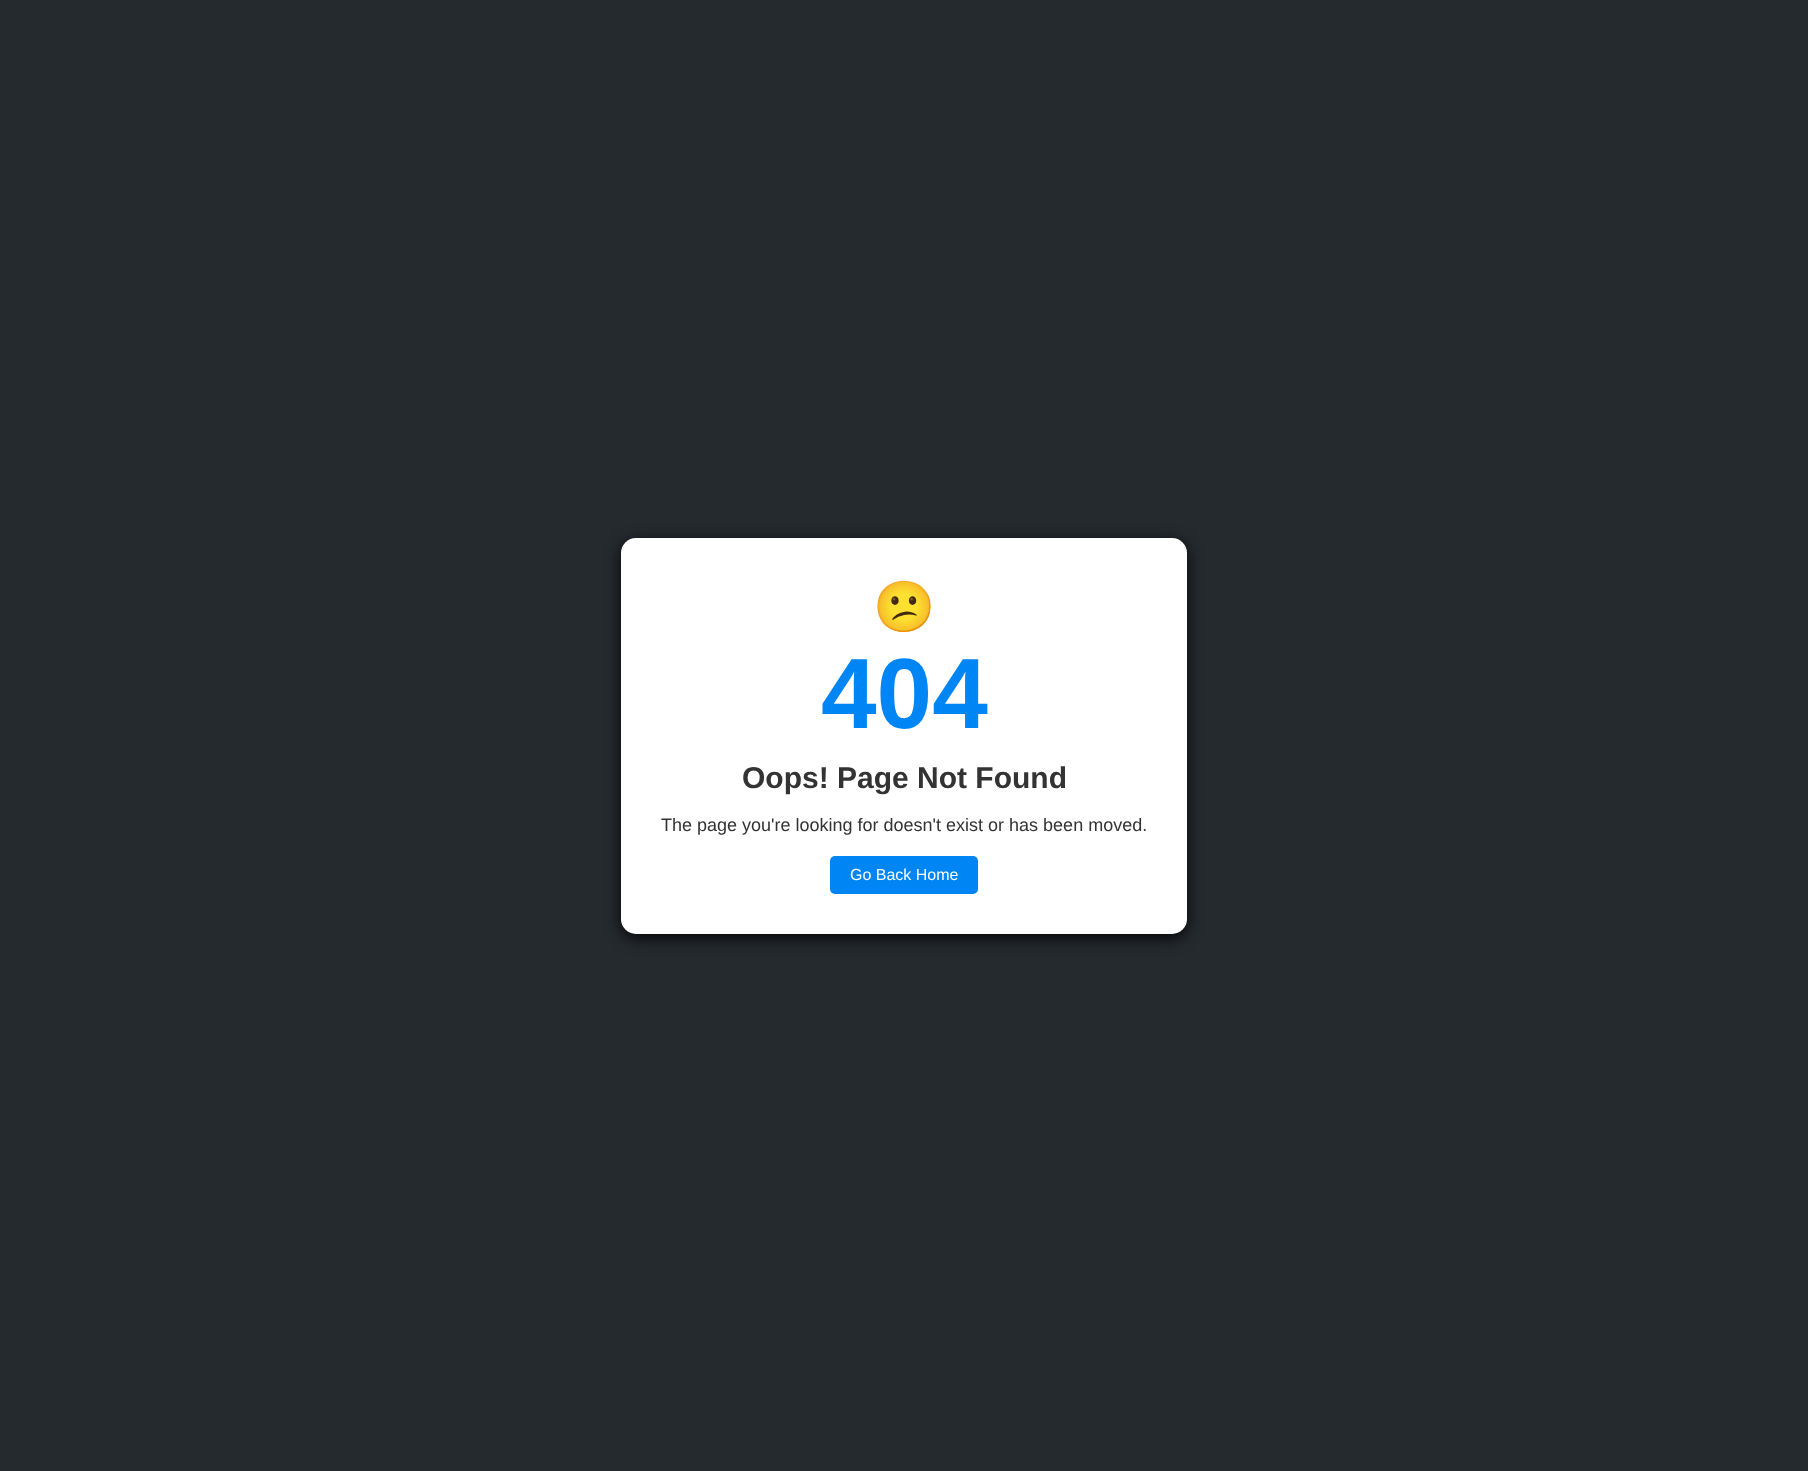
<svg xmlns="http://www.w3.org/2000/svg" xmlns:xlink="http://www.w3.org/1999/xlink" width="1808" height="1471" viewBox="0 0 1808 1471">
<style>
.cls-1{font:50px Noto Color Emoji;fill:#333333}
.cls-2{font:bold 100px Liberation Sans;fill:#0085f4}
.cls-3{font:bold 30px Liberation Sans;fill:#333333}
.cls-4{font:18px Liberation Sans;fill:#333333}
.cls-5{font:16px Liberation Sans;fill:#ffffff}
</style>
<rect width="100%" height="100%" fill="#252a2f"/>
<rect fill="#000000" fill-opacity="0.9" filter="blur(7.5px)" x="621" y="542" width="566" height="396" rx="15"/>
<rect fill="#ffffff" x="621" y="538" width="566" height="396" rx="15"/>
<rect fill="#0085f4" x="830" y="856" width="148" height="38" rx="5"/>
<text class="cls-1" x="873" y="624">😕</text>
<text class="cls-2" x="821" y="728">404</text>
<text class="cls-3" x="742" y="788">Oops! Page Not Found</text>
<text class="cls-4" x="661" y="831">The page you're looking for doesn't exist or has been moved.</text>
<text class="cls-5" x="850" y="880">Go Back Home</text>
</svg>
